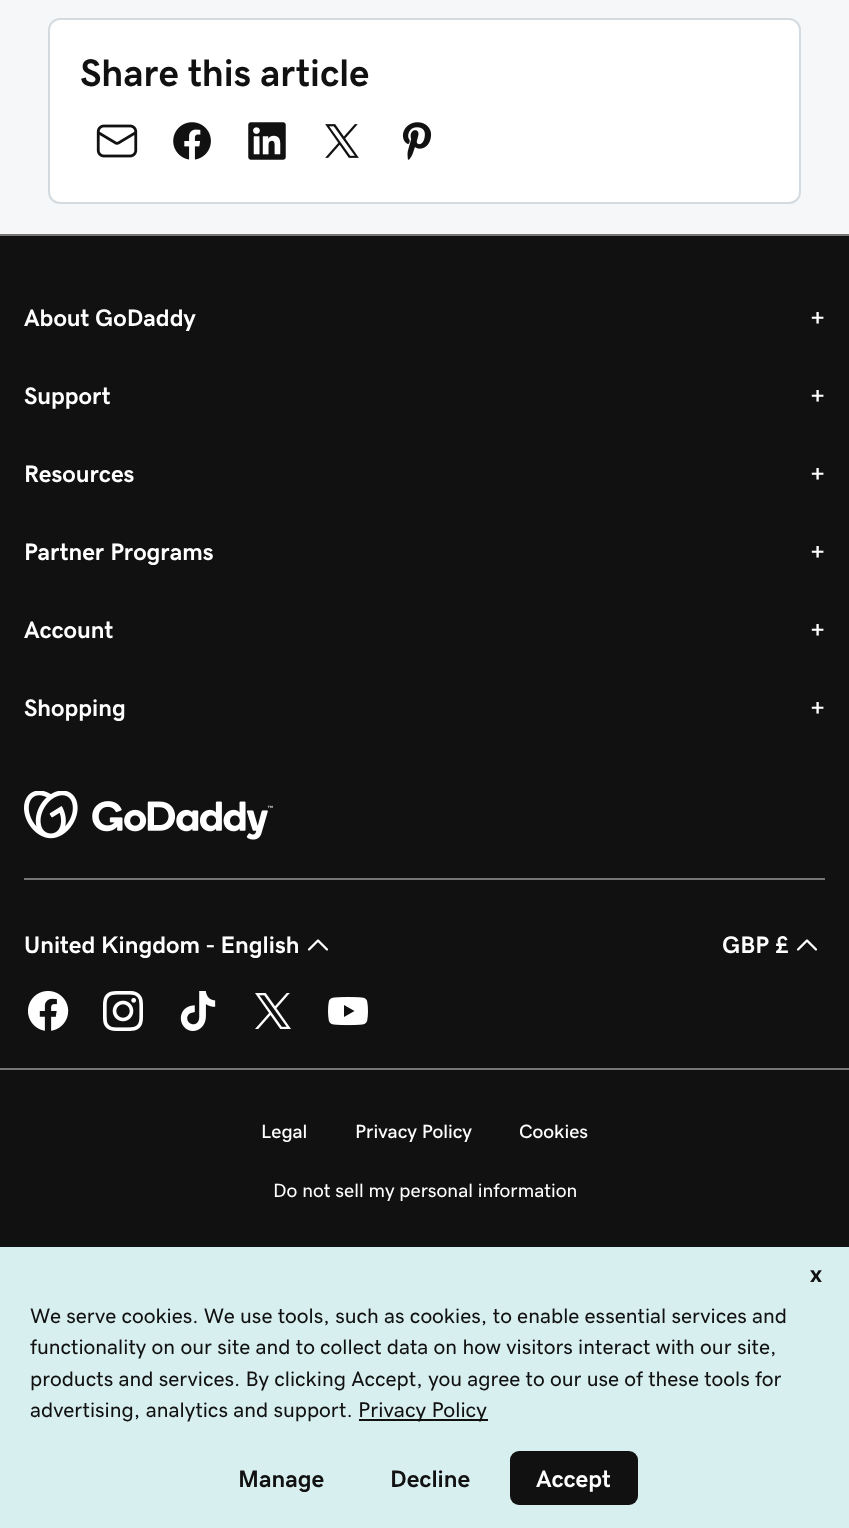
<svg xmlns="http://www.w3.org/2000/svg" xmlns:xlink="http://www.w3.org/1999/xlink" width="849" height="1528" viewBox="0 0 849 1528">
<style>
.cls-1{font:800 38.5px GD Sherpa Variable;fill:#111111}
.cls-2{font:800 24px GD Sherpa Variable;fill:#ffffff}
.cls-3{font:bold 24px GD Sherpa Variable;fill:#ffffff}
.cls-4{font:500 19.25px GD Sherpa Variable;fill:#ffffff}
.cls-5{font:19.25px GD Sherpa Variable;fill:#ffffff}
.cls-6{font:bold 24px 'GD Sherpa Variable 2';fill:#111111}
.cls-7{font:21px GD Sherpa Variable;fill:#111111}
.cls-8{font:21.25px GD Sherpa Variable;fill:#111111}
.cls-9{font:bold 24px 'GD Sherpa Variable 2';fill:#ffffff}
</style>
<rect width="100%" height="100%" fill="#f5f7f8"/>
<rect fill="#ffffff" stroke="#d4dbe0" stroke-width="2" x="49" y="19" width="751" height="184" rx="11"/>
<image xlink:href="image0.png" x="96" y="124" width="42" height="34"/>
<image xlink:href="image1.png" x="173" y="122" width="38" height="38"/>
<image xlink:href="image2.png" x="248" y="122" width="38" height="38"/>
<image xlink:href="image3.png" x="325" y="124" width="34" height="34"/>
<image xlink:href="image4.png" x="402" y="122" width="30" height="38"/>
<rect fill="#111111" x="0" y="236" width="849" height="832"/>
<rect fill="#767676" x="0" y="234" width="849" height="2"/>
<image xlink:href="image5.png" x="24" y="791" width="249" height="49"/>
<rect fill="#767676" x="24" y="878" width="801" height="2"/>
<image xlink:href="image6.png" x="307" y="939" width="22" height="12"/>
<image xlink:href="image6.png" x="796" y="939" width="22" height="12"/>
<image xlink:href="image7.png" x="28" y="991" width="41" height="40"/>
<image xlink:href="image8.png" x="103" y="991" width="40" height="40"/>
<image xlink:href="image9.png" x="180" y="991" width="36" height="40"/>
<image xlink:href="image10.png" x="255" y="993" width="36" height="36"/>
<image xlink:href="image11.png" x="328" y="997" width="40" height="29"/>
<rect fill="#111111" x="0" y="1070" width="849" height="177"/>
<rect fill="#767676" x="0" y="1068" width="849" height="2"/>
<rect fill="#d8efef" x="0" y="1247" width="849" height="281"/>
<rect fill="#111111" x="359" y="1419" width="129" height="2"/>
<rect fill="#111111" x="510" y="1451" width="128" height="54" rx="9"/>
<text class="cls-1" x="80" y="86">Share this article</text>
<text class="cls-2" x="24" y="326">About GoDaddy</text>
<text class="cls-2" x="810" y="326">+</text>
<text class="cls-2" x="24" y="404">Support</text>
<text class="cls-2" x="810" y="404">+</text>
<text class="cls-2" x="24" y="482">Resources</text>
<text class="cls-2" x="810" y="482">+</text>
<text class="cls-2" x="24" y="560">Partner Programs</text>
<text class="cls-2" x="810" y="560">+</text>
<text class="cls-2" x="24" y="638">Account</text>
<text class="cls-2" x="810" y="638">+</text>
<text class="cls-2" x="24" y="716">Shopping</text>
<text class="cls-2" x="810" y="716">+</text>
<text class="cls-3" x="24" y="953">United Kingdom - English</text>
<text class="cls-3" x="722" y="953">GBP £</text>
<text class="cls-4" x="261" y="1138">Legal</text>
<text class="cls-4" x="355" y="1138">Privacy Policy</text>
<text class="cls-4" x="519" y="1138">Cookies</text>
<text class="cls-5" x="273" y="1197">Do not sell my personal information</text>
<text class="cls-6" x="810" y="1282">x</text>
<text class="cls-7"><tspan x="30" y="1323">We serve cookies. We use tools, such as cookies, to enable essential services and</tspan><tspan x="30" y="1354">functionality on our site and to collect data on how visitors interact with our site,</tspan><tspan x="30" y="1386">products and services. By clicking Accept, you agree to our use of these tools for</tspan><tspan x="30" y="1417">advertising, analytics and support.</tspan></text>
<text class="cls-8" x="358" y="1417">Privacy Policy</text>
<text class="cls-6" x="238" y="1487">Manage</text>
<text class="cls-6" x="390" y="1487">Decline</text>
<text class="cls-9" x="536" y="1487">Accept</text>
</svg>
